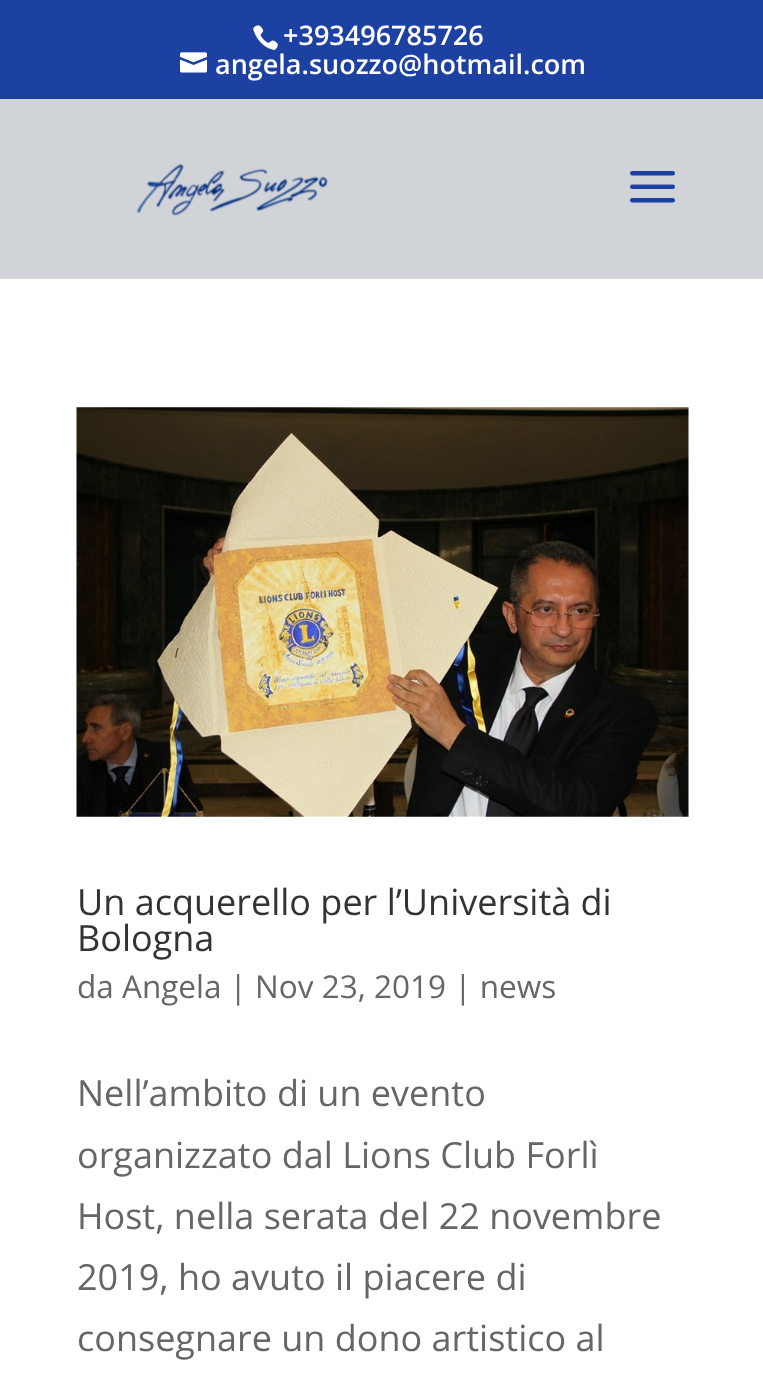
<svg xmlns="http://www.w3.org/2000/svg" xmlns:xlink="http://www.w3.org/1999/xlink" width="763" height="1374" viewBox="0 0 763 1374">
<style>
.cls-1{font:600 27px Open Sans;fill:#ffffff}
.cls-2{font:36px Open Sans;fill:#333333}
.cls-3{font:31.5px Open Sans;fill:#666666}
.cls-4{font:36px Open Sans;fill:#666666}
</style>
<rect width="100%" height="100%" fill="#ffffff"/>
<rect fill="#1d41a3" x="0" y="0" width="763" height="99"/>
<image xlink:href="image0.png" x="253" y="25" width="25" height="26"/>
<image xlink:href="image1.png" x="180" y="52" width="27" height="21"/>
<rect fill="#d0d3d8" x="0" y="99" width="763" height="180"/>
<image xlink:href="image2.png" x="136" y="163" width="192" height="53"/>
<image xlink:href="image3.png" x="630" y="171" width="45" height="32"/>
<image xlink:href="image4.png" x="76" y="407" width="613" height="410"/>
<text class="cls-1" x="283" y="45">+393496785726</text>
<text class="cls-1" x="215" y="74">angela.suozzo@hotmail.com</text>
<text class="cls-2"><tspan x="77" y="915">Un acquerello per l’Università di</tspan><tspan x="77" y="951">Bologna</tspan></text>
<text class="cls-3" x="77" y="998">da Angela | Nov 23, 2019 | news</text>
<text class="cls-4"><tspan x="77" y="1106">Nell’ambito di un evento</tspan><tspan x="77" y="1168">organizzato dal Lions Club Forlì</tspan><tspan x="77" y="1229">Host, nella serata del 22 novembre</tspan><tspan x="77" y="1290">2019, ho avuto il piacere di</tspan><tspan x="77" y="1351">consegnare un dono artistico al</tspan></text>
</svg>
